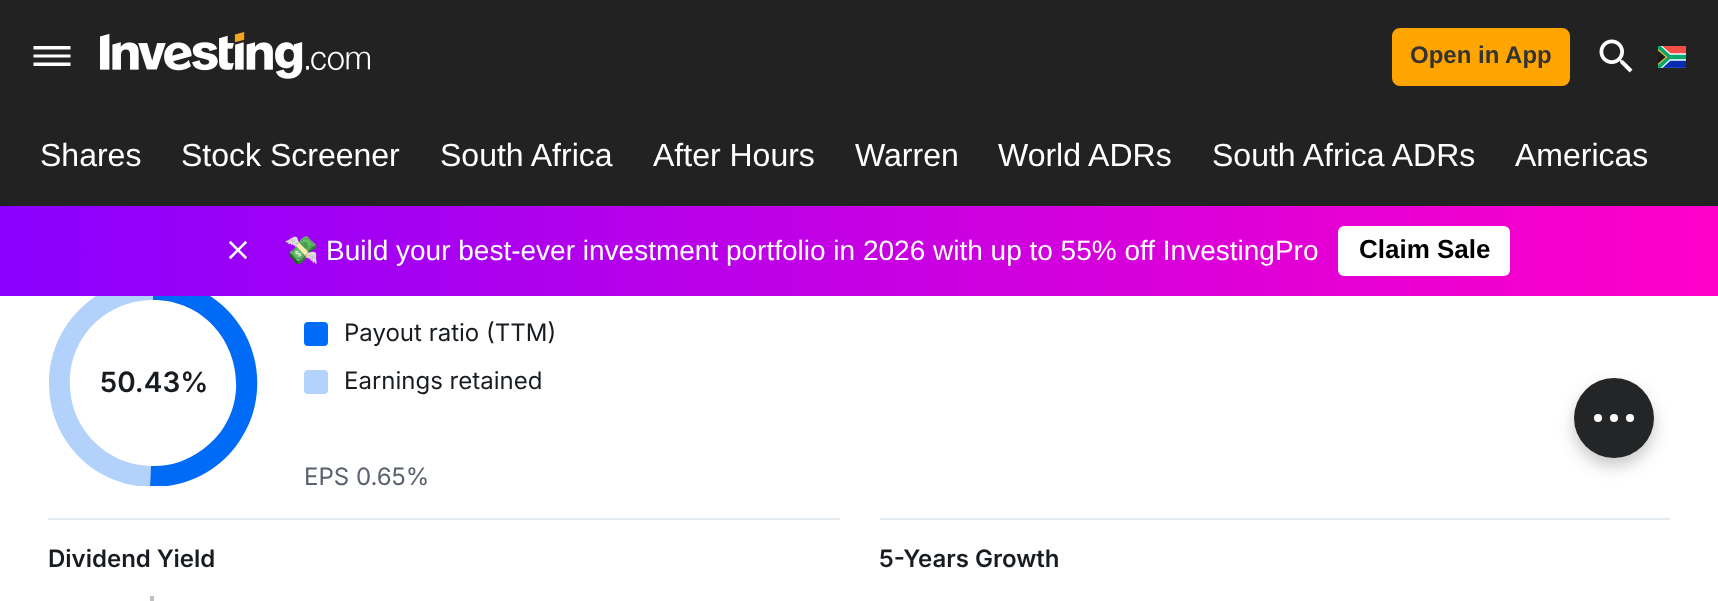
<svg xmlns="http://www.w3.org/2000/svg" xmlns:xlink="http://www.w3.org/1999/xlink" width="1718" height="601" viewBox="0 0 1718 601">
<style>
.cls-1{font:bold 24px Liberation Sans;fill:#333333}
.cls-2{font:32px Liberation Sans;fill:#ffffff}
.cls-3{font:28px Noto Color Emoji;fill:#ffffff}
.cls-4{font:28px Liberation Sans;fill:#ffffff}
.cls-5{font:bold 26px Liberation Sans;fill:#000000}
.cls-6{font:600 28px Inter;fill:#181c21}
.cls-7{font:24px Inter;fill:#181c21}
.cls-8{font:24px Inter;fill:#5b616f}
.cls-9{font:600 24px Inter;fill:#181c21}
</style>
<defs>
<clipPath id="clip1"><rect x="48" y="278" width="210" height="208"/></clipPath>
<linearGradient id="g1" gradientUnits="userSpaceOnUse" x1="0" y1="251" x2="1718" y2="251"><stop offset="0" stop-color="#8a00ff"/><stop offset="1" stop-color="#ff00c8"/></linearGradient>
</defs>
<rect width="100%" height="100%" fill="#ffffff"/>
<rect fill="#222222" x="0" y="0" width="1718" height="206"/>
<path fill="#ffffff" fill-rule="evenodd" d="M33.5 66H70.5V62.5H33.5ZM33.5 57.5H70.5V54.5H33.5ZM33.5 46V49.5H70.5V46Z"/>
<image xlink:href="image0.png" x="100" y="32" width="270" height="47"/>
<rect fill="#ffa500" stroke="#ffa500" stroke-width="2" x="1393" y="29" width="176" height="56" rx="7"/>
<image xlink:href="image1.png" x="1599" y="39" width="34" height="34"/>
<image xlink:href="image2.png" x="1658" y="46" width="28" height="22"/>
<g clip-path="url(#clip1)">
<path fill="#006bf6" d="M153 279C191 279 225 299 244 332C262 364 262 405 242 437C223 469 188 488 150 487L151 466C169 467 187 461 202 450C267 403 233 300 153 300Z"/>
<path fill="#006bf6" fill-opacity="0.3" d="M150 487C93 486 48 439 49 382C50 325 96 279 153 279V300C107 300 70 336 70 382C69 427 105 465 151 466Z"/>
</g>
<rect fill="url(#g1)" x="0" y="206" width="1718" height="90"/>
<image xlink:href="image3.png" x="228" y="240" width="20" height="20"/>
<rect fill="#ffffff" x="1338" y="226" width="172" height="50" rx="6"/>
<rect fill="#006bf6" x="304" y="322" width="24" height="24" rx="4"/>
<rect fill="#b3d3fc" x="304" y="370" width="24" height="24" rx="4"/>
<rect fill="#e4eaf1" x="48" y="518" width="792" height="2"/>
<rect fill="#bdbfc2" x="150" y="596" width="4" height="5"/>
<rect fill="#e4eaf1" x="880" y="518" width="790" height="2"/>
<rect fill="#232526" fill-opacity="0.25" filter="blur(8px)" x="1574" y="386" width="80" height="80" rx="40"/>
<circle fill="#232526" cx="1614" cy="418" r="40"/>
<circle fill="#ffffff" cx="1630" cy="418" r="4"/>
<circle fill="#ffffff" cx="1598" cy="418" r="4"/>
<circle fill="#ffffff" cx="1614" cy="418" r="4"/>
<text class="cls-1" x="1410" y="63">Open in App</text>
<text class="cls-2" x="40" y="166">Shares</text>
<text class="cls-2" x="181" y="166">Stock Screener</text>
<text class="cls-2" x="440" y="166">South Africa</text>
<text class="cls-2" x="653" y="166">After Hours</text>
<text class="cls-2" x="855" y="166">Warren</text>
<text class="cls-2" x="998" y="166">World ADRs</text>
<text class="cls-2" x="1212" y="166">South Africa ADRs</text>
<text class="cls-2" x="1515" y="166">Americas</text>
<text class="cls-3" x="284" y="260">💸</text>
<text class="cls-4" x="326" y="260">Build your best-ever investment portfolio in 2026 with up to 55% off InvestingPro</text>
<text class="cls-5" x="1359" y="258">Claim Sale</text>
<text class="cls-6" x="100" y="392">50.43%</text>
<text class="cls-7" x="344" y="341">Payout ratio (TTM)</text>
<text class="cls-7" x="344" y="389">Earnings retained</text>
<text class="cls-8" x="304" y="485">EPS 0.65%</text>
<text class="cls-9" x="48" y="567">Dividend Yield</text>
<text class="cls-9" x="879" y="567">5-Years Growth</text>
</svg>
